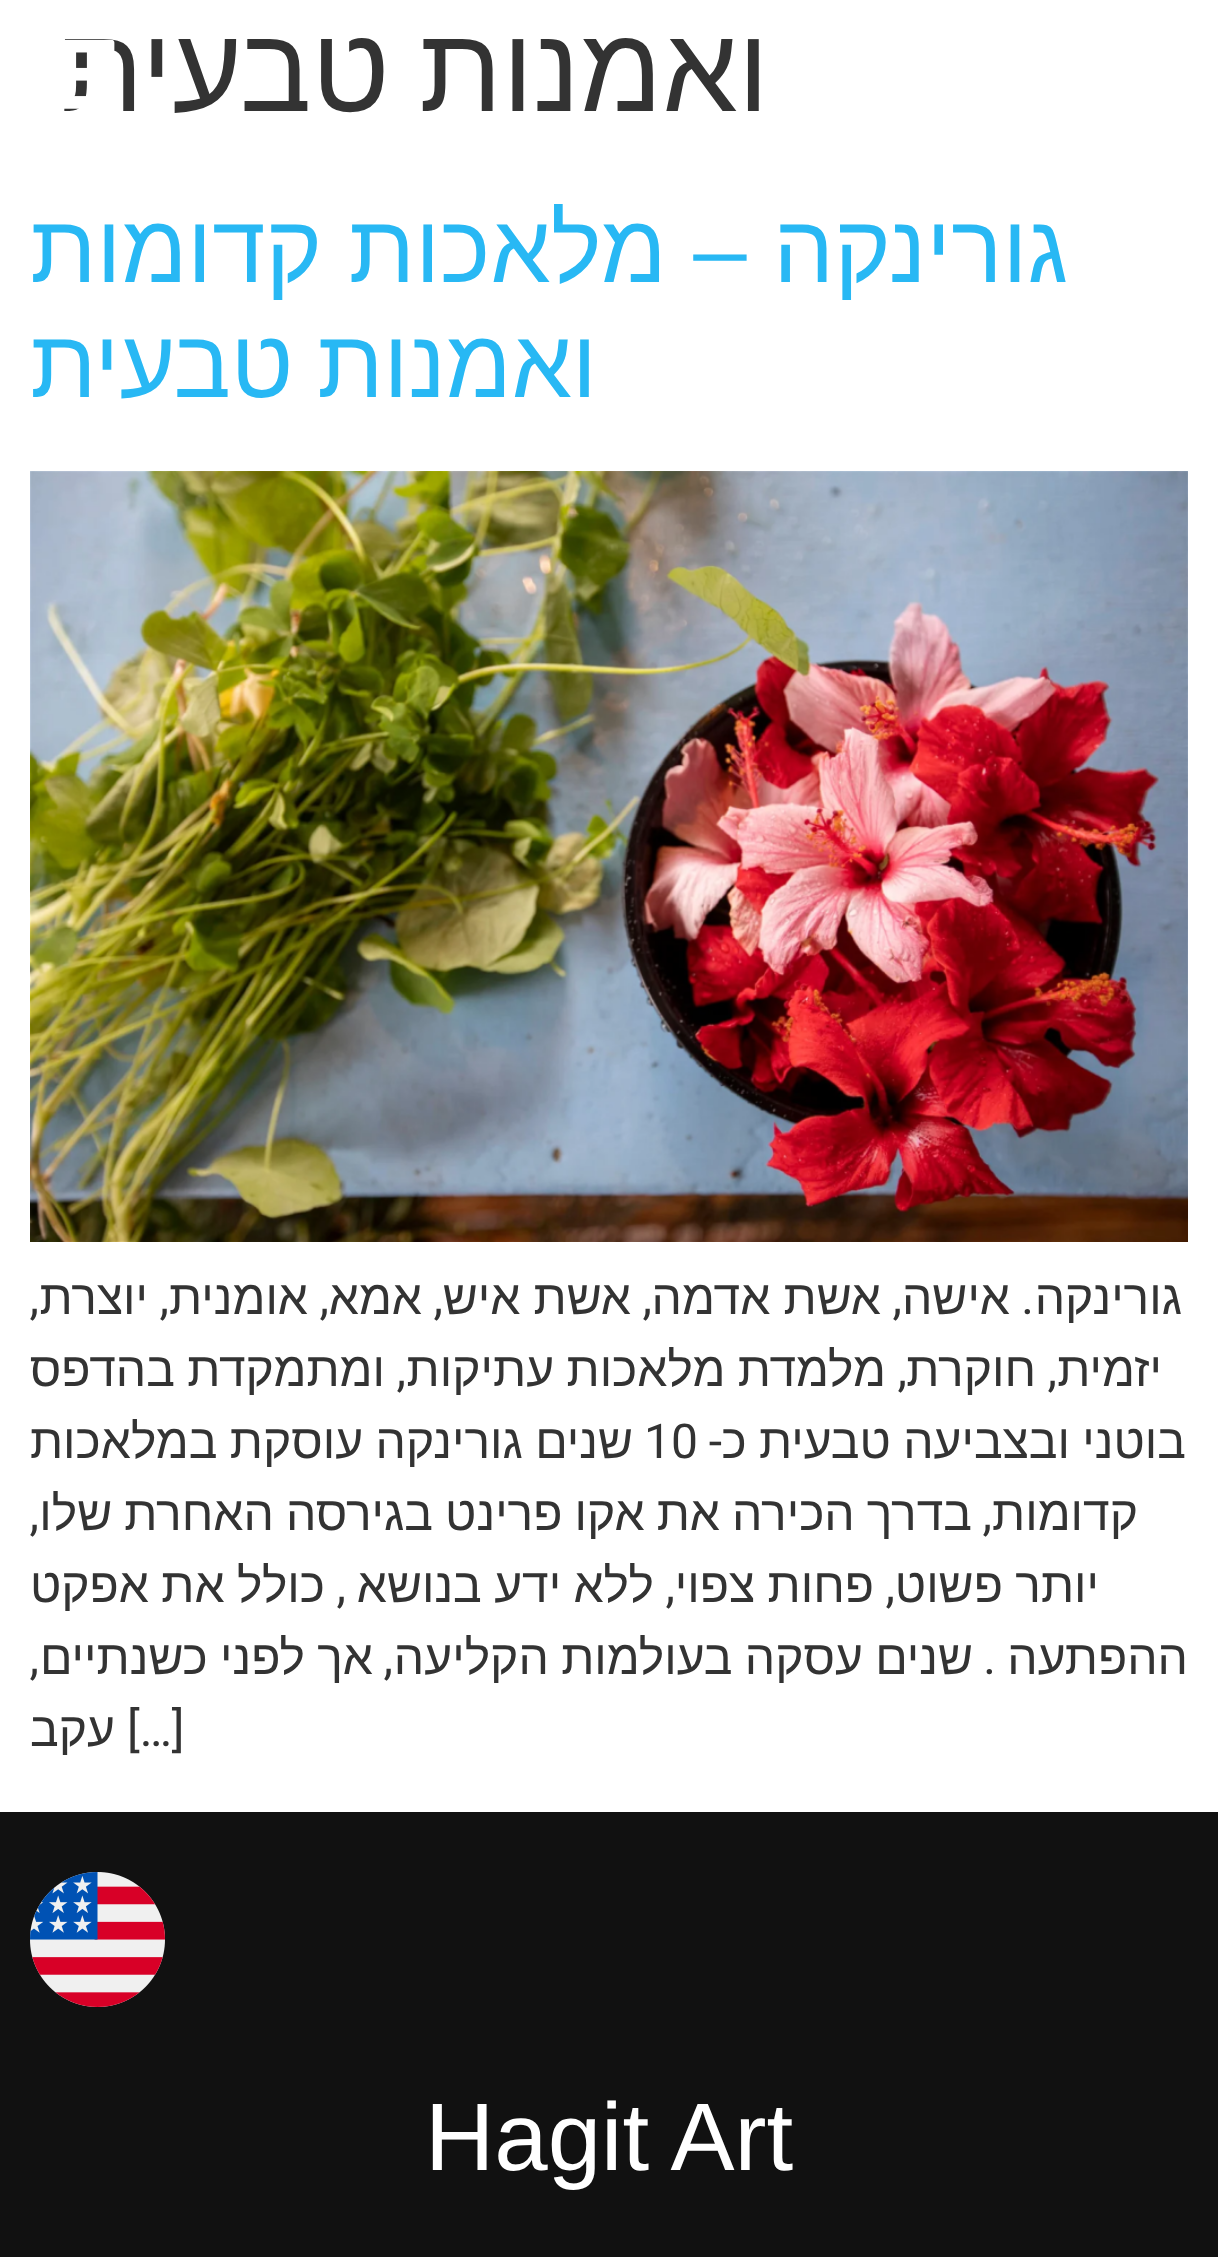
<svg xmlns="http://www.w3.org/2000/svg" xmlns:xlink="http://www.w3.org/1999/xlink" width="1218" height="2257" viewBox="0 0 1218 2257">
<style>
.cls-1{font:120px Liberation Sans;direction:rtl;fill:#333333}
.cls-2{font:96px Liberation Sans;direction:rtl;fill:#28b8f4}
.cls-3{font:48px Liberation Sans;direction:rtl;fill:#333333}
.cls-4{font:48px Roboto;direction:rtl;fill:#333333}
.cls-5{font:48px Roboto;fill:#333333}
.cls-6{font:96px Liberation Sans;fill:#ffffff}
</style>
<rect width="100%" height="100%" fill="#ffffff"/>
<image xlink:href="image0.png" x="30" y="471" width="1158" height="771"/>
<rect fill="#111111" x="0" y="1812" width="1218" height="445"/>
<image xlink:href="image2.png" x="30" y="1872" width="135" height="135"/>
<text class="cls-1" x="769" y="111" word-spacing="-4">ואמנות טבעית</text>
<text class="cls-2" x="1068" y="282">גורינקה – מלאכות קדומות</text>
<text class="cls-2" x="597" y="397" word-spacing="-3">ואמנות טבעית</text>
<text class="cls-3" x="1182" y="1314">גורינקה</text>
<text class="cls-4" x="1034" y="1314">.</text>
<text class="cls-3" x="1010" y="1314">אישה</text>
<text class="cls-4" x="902" y="1314">,</text>
<text class="cls-3" x="881" y="1314">אשת אדמה</text>
<text class="cls-4" x="652" y="1314">,</text>
<text class="cls-3" x="631" y="1314">אשת איש</text>
<text class="cls-4" x="443" y="1314">,</text>
<text class="cls-3" x="422" y="1314">אמא</text>
<text class="cls-4" x="329" y="1314">,</text>
<text class="cls-3" x="308" y="1314">אומנית</text>
<text class="cls-4" x="169" y="1314">,</text>
<text class="cls-3" x="148" y="1314">יוצרת</text>
<text class="cls-4" x="39" y="1314">,</text>
<text class="cls-3" x="1162" y="1386">יזמית</text>
<text class="cls-4" x="1057" y="1386">,</text>
<text class="cls-3" x="1036" y="1386">חוקרת</text>
<text class="cls-4" x="907" y="1386">,</text>
<text class="cls-3" x="886" y="1386" word-spacing="-1">מלמדת מלאכות עתיקות</text>
<text class="cls-4" x="406" y="1386">,</text>
<text class="cls-3" x="385" y="1386" word-spacing="-1">ומתמקדת בהדפס</text>
<text class="cls-3" x="1186" y="1458" word-spacing="-1">בוטני ובצביעה טבעית כ</text>
<text class="cls-4" x="722" y="1458">-</text>
<text class="cls-5" x="644" y="1458">10</text>
<text class="cls-3" x="633" y="1458" word-spacing="-1">שנים גורינקה עוסקת במלאכות</text>
<text class="cls-3" x="1138" y="1530">קדומות</text>
<text class="cls-4" x="992" y="1530">,</text>
<text class="cls-3" x="972" y="1530" word-spacing="-1.25">בדרך הכירה את אקו פרינט בגירסה האחרת שלו</text>
<text class="cls-4" x="39" y="1530">,</text>
<text class="cls-3" x="1099" y="1602" word-spacing="-1">יותר פשוט</text>
<text class="cls-4" x="895" y="1602">,</text>
<text class="cls-3" x="874" y="1602" word-spacing="-1">פחות צפוי</text>
<text class="cls-4" x="675" y="1602">,</text>
<text class="cls-3" x="654" y="1602" word-spacing="-1">ללא ידע בנושא</text>
<text class="cls-4" x="346" y="1602">,</text>
<text class="cls-3" x="325" y="1602" word-spacing="-1">כולל את אפקט</text>
<text class="cls-3" x="1188" y="1674">ההפתעה</text>
<text class="cls-4" x="996" y="1674">.</text>
<text class="cls-3" x="973" y="1674" word-spacing="-1">שנים עסקה בעולמות הקליעה</text>
<text class="cls-4" x="393" y="1674">,</text>
<text class="cls-3" x="373" y="1674" word-spacing="-1">אך לפני כשנתיים</text>
<text class="cls-4" x="39" y="1674">,</text>
<text class="cls-5" x="127" y="1746">[…]</text>
<text class="cls-3" x="115" y="1746">עקב</text>
<image xlink:href="image1.png" x="63" y="39" width="52" height="70"/>
<text class="cls-6" x="425" y="2170">Hagit Art</text>
</svg>
